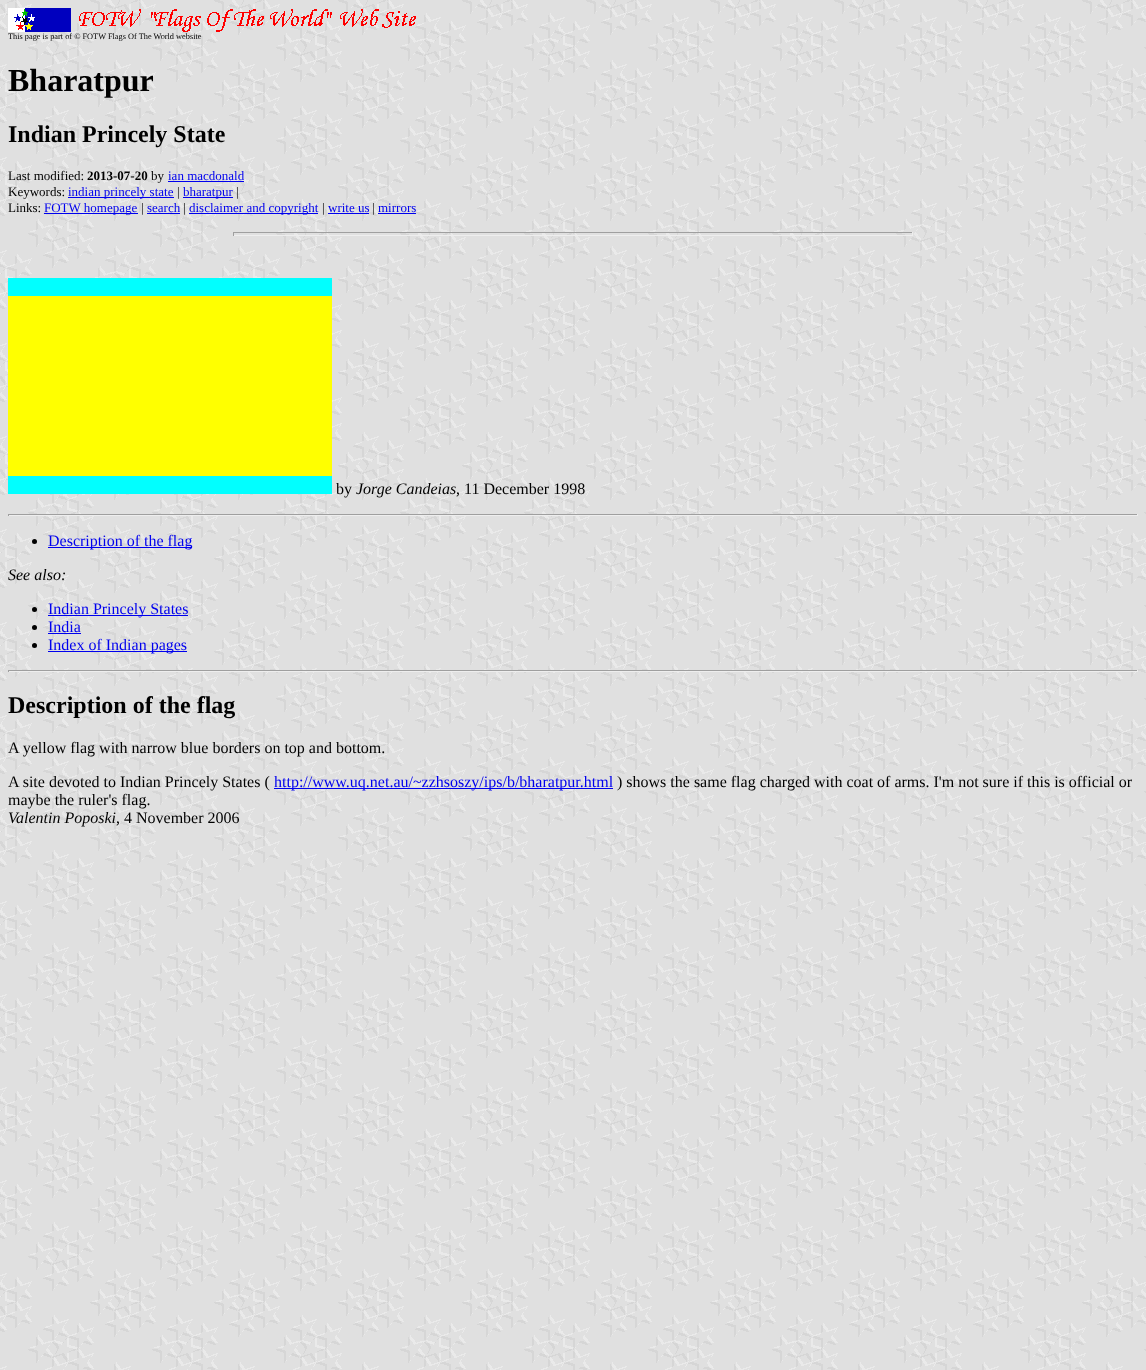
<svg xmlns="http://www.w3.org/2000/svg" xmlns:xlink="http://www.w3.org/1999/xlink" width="1146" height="1370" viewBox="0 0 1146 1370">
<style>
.cls-1{font:8.3px Liberation Serif;fill:#000000}
.cls-2{font:bold 32px Liberation Serif;fill:#000000}
.cls-3{font:bold 24px Liberation Serif;fill:#000000}
.cls-4{font:13px Liberation Serif;fill:#000000}
.cls-5{font:bold 13px Liberation Serif;fill:#000000}
.cls-6{font:13px Liberation Serif;fill:#0000ee}
.cls-7{font:16px Liberation Serif;fill:#000000}
.cls-8{font:italic 16px Liberation Serif;fill:#000000}
.cls-9{font:16px Liberation Serif;fill:#0000ee}
</style>
<rect width="100%" height="100%" fill="#ffffff"/>
<image xlink:href="image0.png" x="0" y="0" width="1146" height="1370"/>
<image xlink:href="image1.png" x="8" y="8" width="408" height="24"/>
<rect fill="#0000ee" x="168" y="181" width="76" height="1"/>
<rect fill="#0000ee" x="68" y="197" width="106" height="1"/>
<rect fill="#0000ee" x="183" y="197" width="50" height="1"/>
<rect fill="#0000ee" x="44" y="213" width="94" height="1"/>
<rect fill="#0000ee" x="147" y="213" width="33" height="1"/>
<rect fill="#0000ee" x="189" y="213" width="129" height="1"/>
<rect fill="#0000ee" x="328" y="213" width="41" height="1"/>
<rect fill="#0000ee" x="378" y="213" width="38" height="1"/>
<rect fill="#9f9f9f" x="233" y="232" width="680" height="1"/>
<rect fill="#eeeeee" x="912" y="232" width="1" height="4"/>
<rect fill="#eeeeee" x="233" y="235" width="680" height="1"/>
<rect fill="#9f9f9f" x="233" y="232" width="1" height="4"/>
<image xlink:href="image2.png" x="8" y="278" width="324" height="216"/>
<rect fill="#9f9f9f" x="8" y="514" width="1130" height="1"/>
<rect fill="#eeeeee" x="1137" y="514" width="1" height="2"/>
<rect fill="#eeeeee" x="8" y="515" width="1130" height="1"/>
<rect fill="#9f9f9f" x="8" y="514" width="1" height="2"/>
<circle fill="#000000" cx="34.5" cy="541.5" r="2.5"/>
<rect fill="#0000ee" x="48" y="547" width="144" height="1"/>
<circle fill="#000000" cx="34.5" cy="609.5" r="2.5"/>
<rect fill="#0000ee" x="48" y="615" width="140" height="1"/>
<circle fill="#000000" cx="34.5" cy="627.5" r="2.5"/>
<rect fill="#0000ee" x="48" y="633" width="33" height="1"/>
<circle fill="#000000" cx="34.5" cy="645.5" r="2.5"/>
<rect fill="#0000ee" x="48" y="651" width="139" height="1"/>
<rect fill="#9f9f9f" x="8" y="670" width="1130" height="1"/>
<rect fill="#eeeeee" x="1137" y="670" width="1" height="2"/>
<rect fill="#eeeeee" x="8" y="671" width="1130" height="1"/>
<rect fill="#9f9f9f" x="8" y="670" width="1" height="2"/>
<rect fill="#0000ee" x="274" y="788" width="339" height="1"/>
<text class="cls-1" x="8" y="39">This page is part of © FOTW Flags Of The World website</text>
<text class="cls-2" x="8" y="91">Bharatpur</text>
<text class="cls-3" x="8" y="142">Indian Princely State</text>
<text class="cls-4" x="8" y="180">Last modified:</text>
<text class="cls-5" x="87" y="180">2013-07-20</text>
<text class="cls-4" x="151" y="180">by</text>
<text class="cls-6" x="168" y="180">ian macdonald</text>
<text class="cls-4" x="8" y="196">Keywords:</text>
<text class="cls-6" x="68" y="196">indian princely state</text>
<text class="cls-4" x="177" y="196">|</text>
<text class="cls-6" x="183" y="196">bharatpur</text>
<text class="cls-4" x="236" y="196">|</text>
<text class="cls-4" x="8" y="212">Links:</text>
<text class="cls-6" x="44" y="212">FOTW homepage</text>
<text class="cls-4" x="141" y="212">|</text>
<text class="cls-6" x="147" y="212">search</text>
<text class="cls-4" x="183" y="212">|</text>
<text class="cls-6" x="189" y="212">disclaimer and copyright</text>
<text class="cls-4" x="322" y="212">|</text>
<text class="cls-6" x="328" y="212">write us</text>
<text class="cls-4" x="372" y="212">|</text>
<text class="cls-6" x="378" y="212">mirrors</text>
<text class="cls-7" x="336" y="494">by</text>
<text class="cls-8" x="356" y="494">Jorge Candeias</text>
<text class="cls-7" x="456" y="494">, 11 December 1998</text>
<text class="cls-9" x="48" y="546">Description of the flag</text>
<text class="cls-8" x="8" y="580">See also:</text>
<text class="cls-9"><tspan x="48" y="614">Indian Princely States</tspan><tspan x="48" y="632">India</tspan><tspan x="48" y="650">Index of Indian pages</tspan></text>
<text class="cls-3" x="8" y="713">Description of the flag</text>
<text class="cls-7" x="8" y="753">A yellow flag with narrow blue borders on top and bottom.</text>
<text class="cls-7" x="8" y="787">A site devoted to Indian Princely States (</text>
<text class="cls-9" x="274" y="787">http://www.uq.net.au/~zzhsoszy/ips/b/bharatpur.html</text>
<text class="cls-7" x="617" y="787">) shows the same flag charged with coat of arms. I'm not sure if this is official or</text>
<text class="cls-7" x="8" y="805">maybe the ruler's flag.</text>
<text class="cls-8" x="8" y="823">Valentin Poposki</text>
<text class="cls-7" x="116" y="823">, 4 November 2006</text>
</svg>
